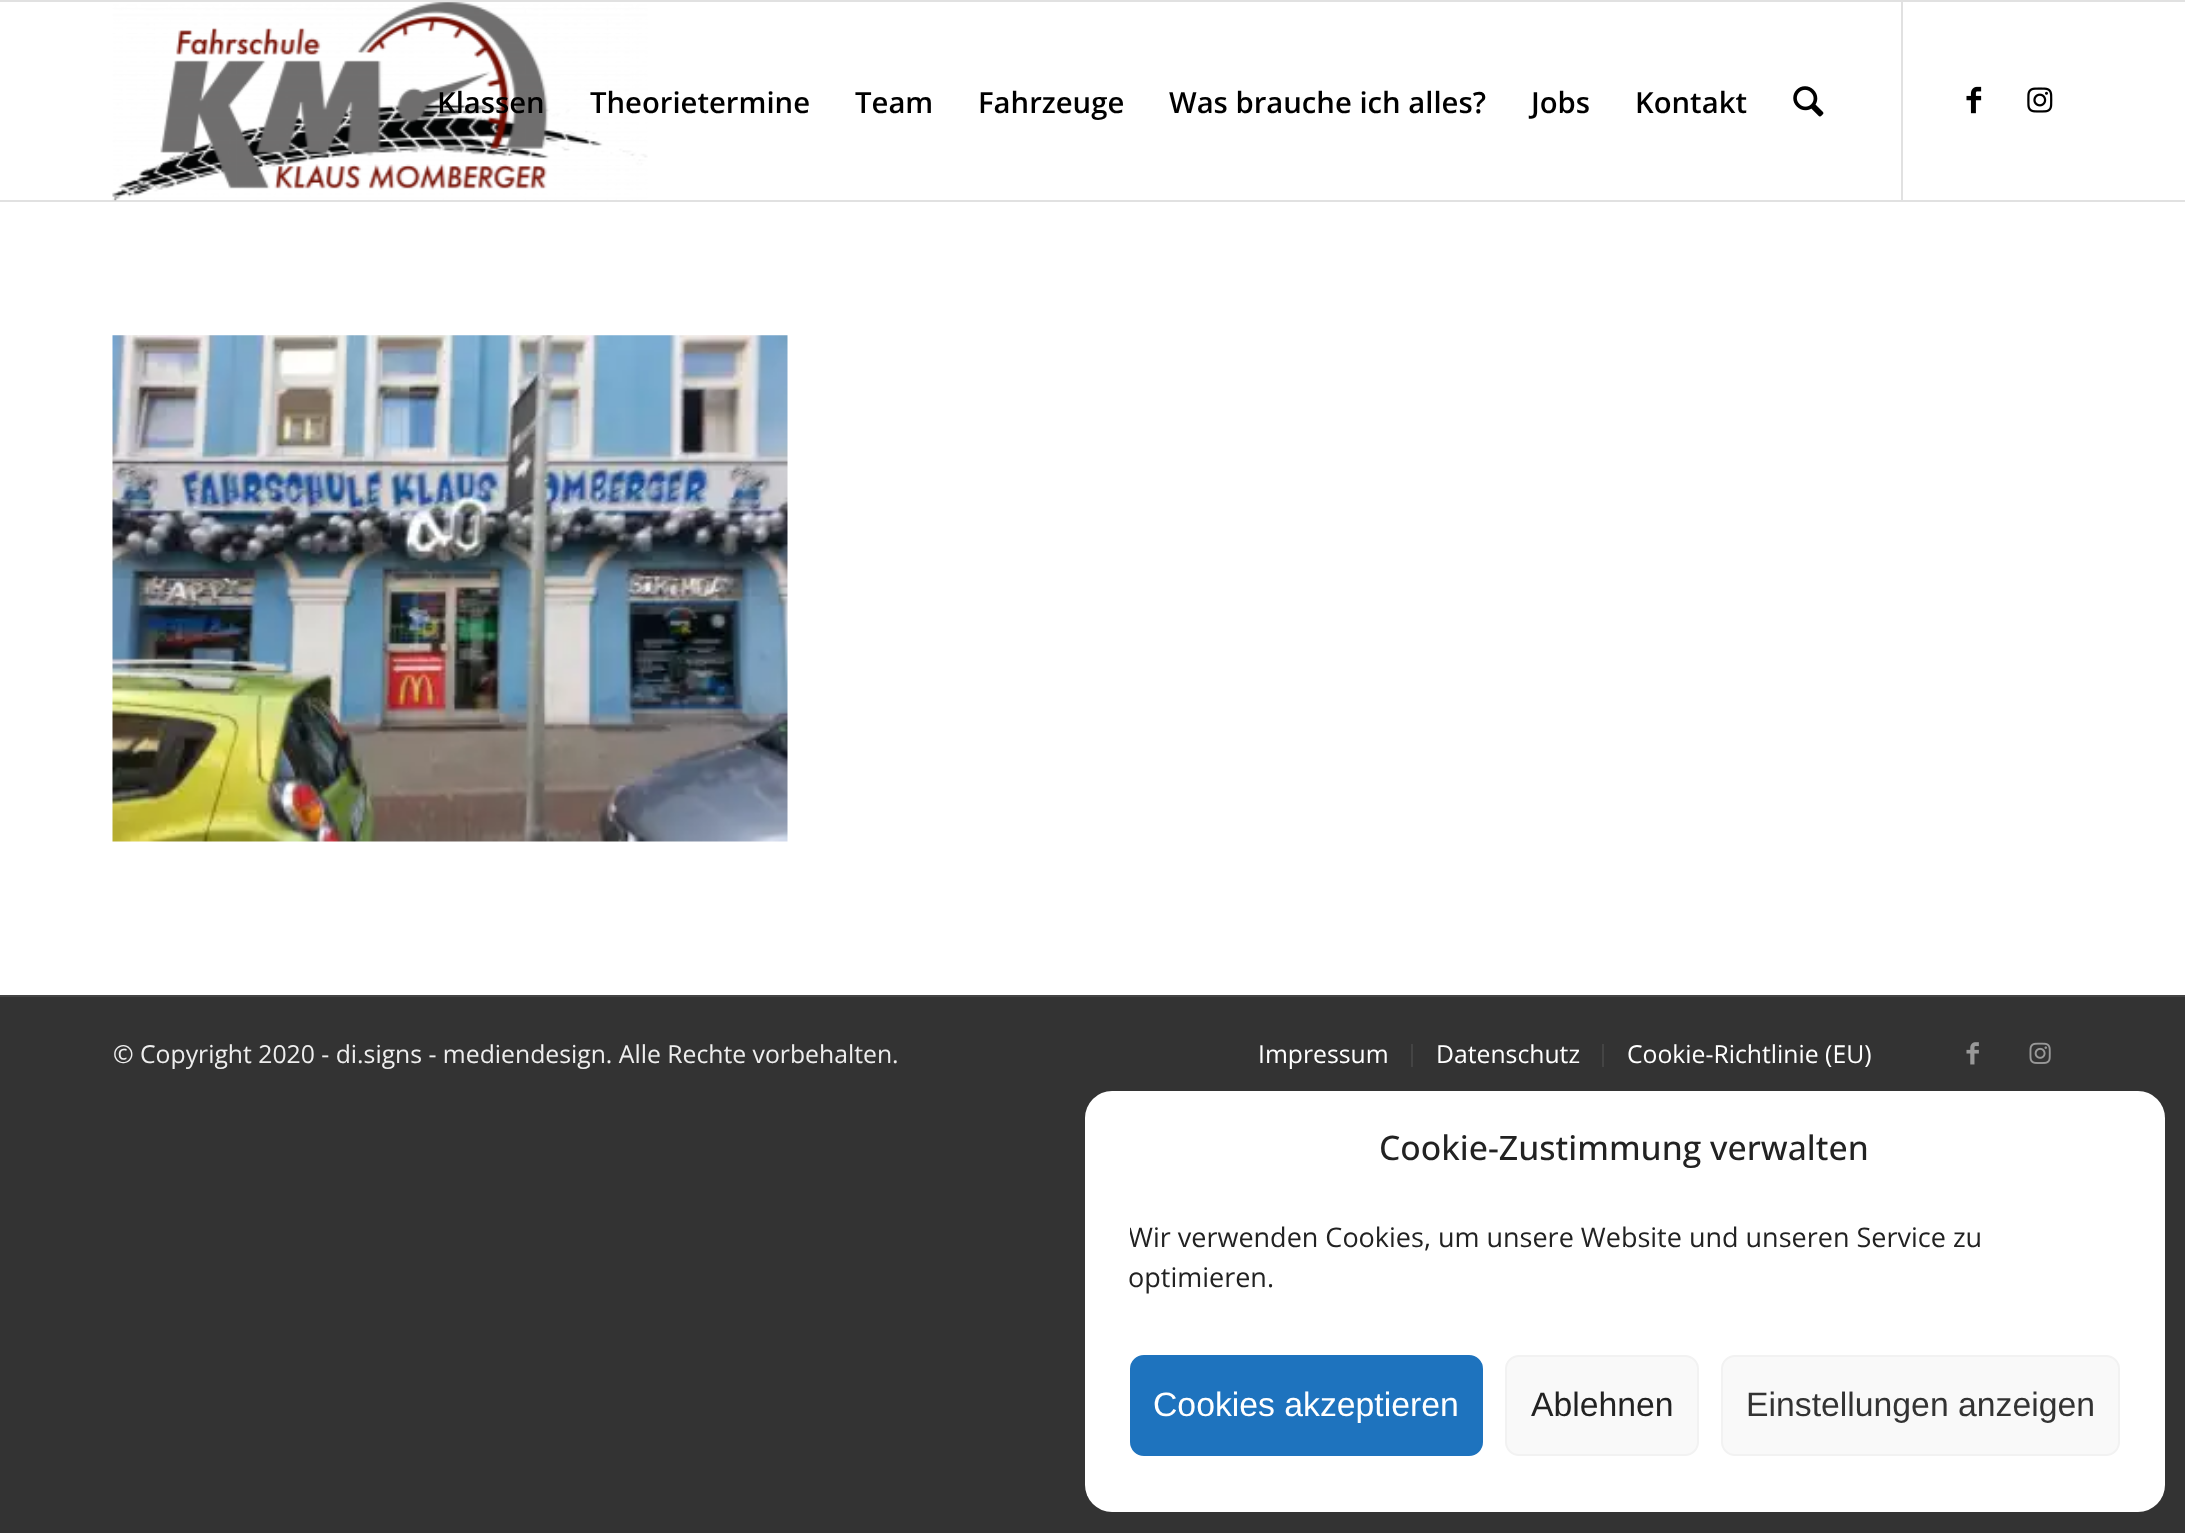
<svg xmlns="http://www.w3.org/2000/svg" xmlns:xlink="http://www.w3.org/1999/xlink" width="2185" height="1533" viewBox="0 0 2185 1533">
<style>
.cls-1{font:600 29.25px Open Sans;fill:#000000}
.cls-2{font:24.75px Open Sans;fill:#eeeeee}
.cls-3{font:24.75px Open Sans;fill:#ffffff}
.cls-4{font:500 33.75px Open Sans;fill:#222222}
.cls-5{font:27px Open Sans;fill:#222222}
.cls-6{font:33.75px Liberation Sans;fill:#ffffff}
.cls-7{font:33.75px Liberation Sans;fill:#222222}
.cls-8{font:33.75px Liberation Sans;fill:#333333}
</style>
<defs>
<clipPath id="clip1"><rect x="1130" y="1217" width="990" height="93"/></clipPath>
</defs>
<rect width="100%" height="100%" fill="#333333"/>
<rect fill="#ffffff" x="0" y="2" width="2185" height="993"/>
<rect fill="#e1e1e1" x="0" y="0" width="2185" height="2"/>
<rect fill="#e1e1e1" x="0" y="200" width="2185" height="2"/>
<image xlink:href="image0.png" x="112" y="2" width="536" height="199"/>
<rect fill="#e1e1e1" x="1901" y="2" width="2" height="198"/>
<image xlink:href="image1.png" x="1793" y="86" width="31" height="31"/>
<image xlink:href="image2.png" x="1966" y="86" width="16" height="28"/>
<image xlink:href="image3.png" x="2027" y="87" width="26" height="26"/>
<image xlink:href="image4.png" x="112" y="335" width="676" height="507"/>
<rect fill="#444444" x="0" y="995" width="2185" height="2"/>
<rect fill="#444444" x="1411" y="1044" width="2" height="23"/>
<rect fill="#444444" x="1602" y="1044" width="2" height="23"/>
<image xlink:href="image5.png" x="1966" y="1042" width="13" height="23"/>
<image xlink:href="image6.png" x="2029" y="1042" width="22" height="22"/>
<rect fill="#ffffff" x="1085" y="1091" width="1080" height="421" rx="27"/>
<rect fill="#1e73be" stroke="#1e73be" stroke-width="2" x="1131" y="1356" width="351" height="99" rx="13"/>
<rect fill="#f9f9f9" stroke="#f2f2f2" stroke-width="2" x="1506" y="1356" width="192" height="99" rx="13"/>
<rect fill="#f9f9f9" stroke="#f2f2f2" stroke-width="2" x="1722" y="1356" width="397" height="99" rx="13"/>
<text class="cls-1" x="437" y="113">Klassen</text>
<text class="cls-1" x="590" y="113">Theorietermine</text>
<text class="cls-1" x="855" y="113">Team</text>
<text class="cls-1" x="978" y="113">Fahrzeuge</text>
<text class="cls-1" x="1169" y="113">Was brauche ich alles?</text>
<text class="cls-1" x="1531" y="113">Jobs</text>
<text class="cls-1" x="1635" y="113">Kontakt</text>
<text class="cls-2" x="113" y="1063">© Copyright 2020 - di.signs - mediendesign. Alle Rechte vorbehalten.</text>
<text class="cls-3" x="1258" y="1063">Impressum</text>
<text class="cls-3" x="1436" y="1063">Datenschutz</text>
<text class="cls-3" x="1627" y="1063">Cookie-Richtlinie (EU)</text>
<text class="cls-4" x="1379" y="1160">Cookie-Zustimmung verwalten</text>
<g clip-path="url(#clip1)">
<text class="cls-5" x="1128" y="1247">Wir verwenden Cookies, um unsere Website und unseren Service zu</text>
</g>
<text class="cls-5" x="1128" y="1287">optimieren.</text>
<text class="cls-6" x="1153" y="1416">Cookies akzeptieren</text>
<text class="cls-7" x="1531" y="1416">Ablehnen</text>
<text class="cls-8" x="1746" y="1416">Einstellungen anzeigen</text>
</svg>
